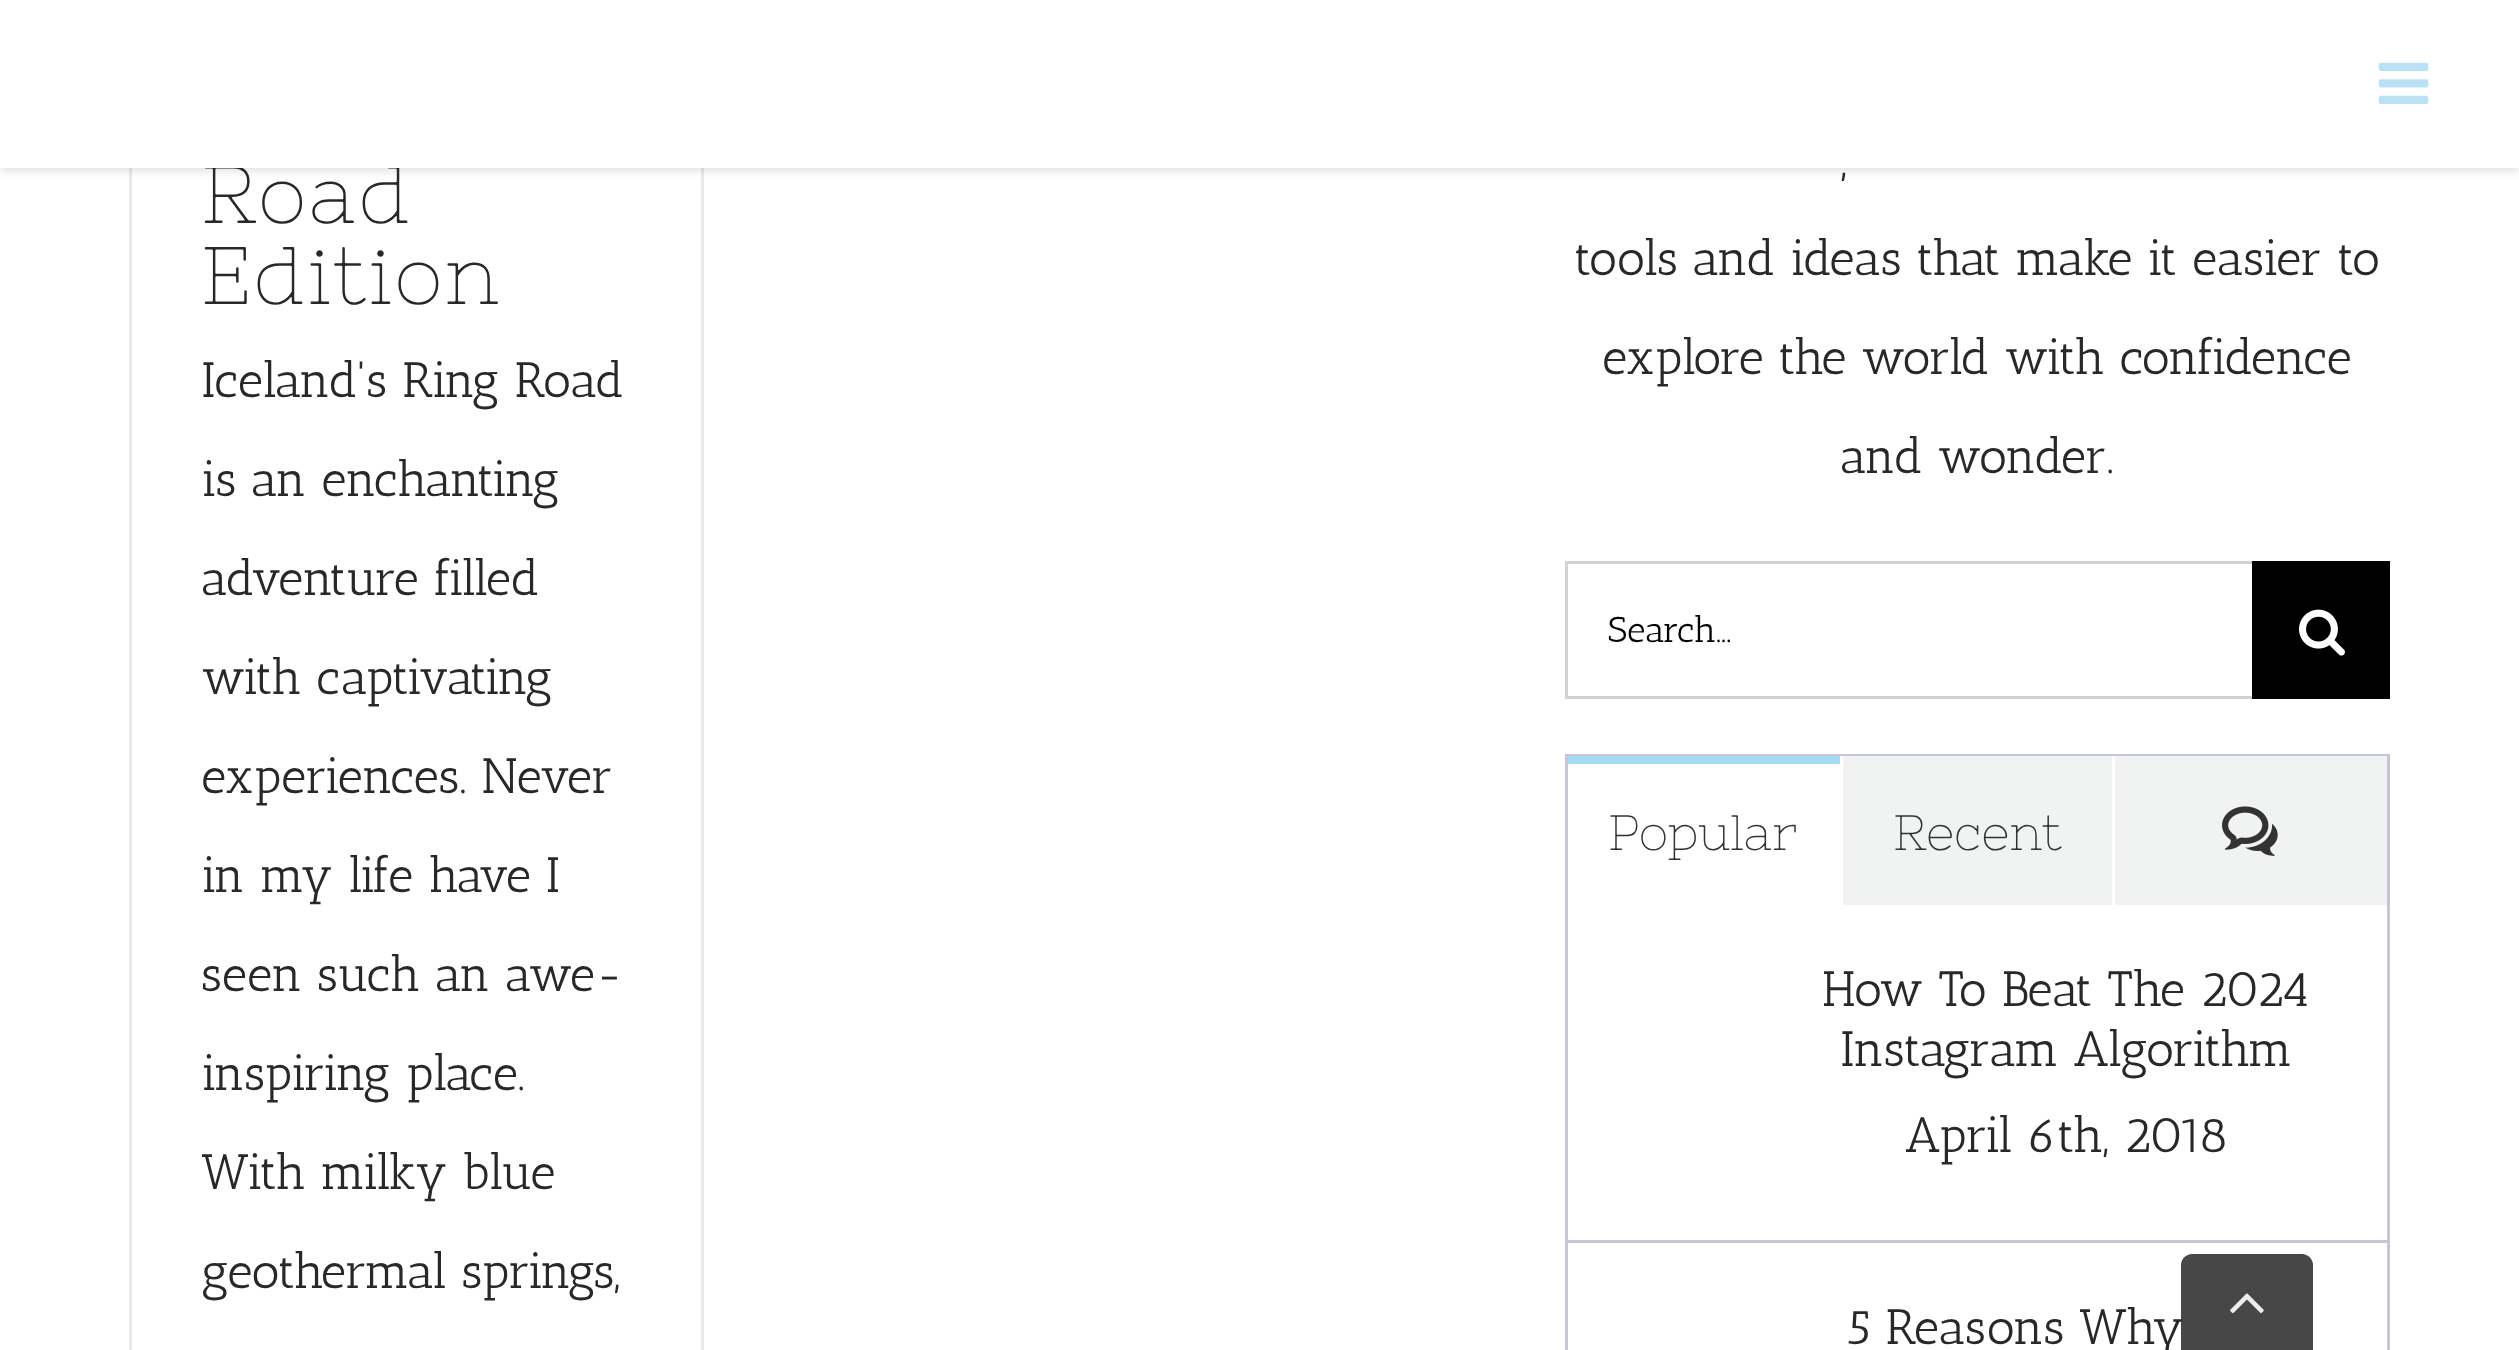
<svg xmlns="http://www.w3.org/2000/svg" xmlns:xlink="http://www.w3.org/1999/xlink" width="2519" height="1350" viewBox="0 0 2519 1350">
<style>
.cls-1{font:81.5px Nixie One;letter-spacing:2.75px;fill:#282828}
.cls-2{font:49.5px Antic Slab;fill:#282828}
.cls-3{font:36px Antic Slab;fill:#000000}
.cls-4{font:49.5px Nixie One;fill:#333333}
</style>
<rect width="100%" height="100%" fill="#ffffff"/>
<rect fill="#ebeaea" x="701" y="168" width="3" height="1182"/>
<rect fill="#ebeaea" x="129" y="168" width="3" height="1182"/>
<rect fill="#000000" fill-opacity="0.12" filter="blur(4px)" x="0" y="3" width="2519" height="168"/>
<rect fill="#d2d2d2" x="1565" y="561" width="687" height="3"/>
<rect fill="#d2d2d2" x="1565" y="696" width="687" height="3"/>
<rect fill="#d2d2d2" x="1565" y="561" width="3" height="138"/>
<rect fill="#000000" x="2252" y="561" width="138" height="138"/>
<image xlink:href="image1.png" x="2299" y="609" width="46" height="47"/>
<rect fill="none" stroke="#c5c5d7" stroke-width="3" x="1566.5" y="755.5" width="822" height="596"/>
<rect fill="#ffffff" x="1840" y="756" width="3" height="1"/>
<rect fill="#a4dbf4" x="1568" y="756" width="272" height="8"/>
<rect fill="#ffffff" x="2112" y="756" width="3" height="1"/>
<rect fill="#f1f2f2" x="1843" y="756" width="269" height="149"/>
<rect fill="#f1f2f2" x="2115" y="756" width="272" height="149"/>
<image xlink:href="image2.png" x="2222" y="806" width="56" height="50"/>
<rect fill="#c5c5d7" x="1568" y="1240" width="819" height="3"/>
<text class="cls-1" x="201" y="223">Road</text>
<rect fill="#ffffff" x="0" y="0" width="2519" height="168"/>
<image xlink:href="image0.png" x="2378" y="62" width="51" height="42"/>
<text class="cls-1" x="201" y="304">Edition</text>
<text class="cls-2" x="201" y="397">Iceland's Ring Road</text>
<text class="cls-2" x="201" y="496">is an enchanting</text>
<text class="cls-2" x="201" y="595">adventure filled</text>
<text class="cls-2" x="201" y="694">with captivating</text>
<text class="cls-2" x="201" y="793">experiences. Never</text>
<text class="cls-2" x="201" y="892">in my life have I</text>
<text class="cls-2" x="201" y="991">seen such an awe-</text>
<text class="cls-2" x="201" y="1090">inspiring place.</text>
<text class="cls-2" x="201" y="1189">With milky blue</text>
<text class="cls-2" x="201" y="1288">geothermal springs,</text>
<text class="cls-2" x="1841" y="176">,</text>
<text class="cls-2" x="1574" y="275">tools and ideas that make it easier to</text>
<text class="cls-2" x="1602" y="374">explore the world with confidence</text>
<text class="cls-2" x="1840" y="473">and wonder.</text>
<text class="cls-3" x="1608" y="642">Search...</text>
<text class="cls-4" x="1608" y="850">Popular</text>
<text class="cls-4" x="1893" y="850">Recent</text>
<text class="cls-2" x="1822" y="1006">How To Beat The 2024</text>
<text class="cls-2" x="1840" y="1066">Instagram Algorithm</text>
<text class="cls-2" x="1905" y="1152">April 6th, 2018</text>
<text class="cls-2" x="1847" y="1344">5 Reasons Why</text>
<path fill="#333333" fill-opacity="0.9" d="M2192 1254H2302C2308 1254 2313 1259 2313 1265V1350H2181V1265C2181 1259 2186 1254 2192 1254Z"/>
<image xlink:href="image3.png" x="2230" y="1293" width="34" height="21"/>
</svg>
